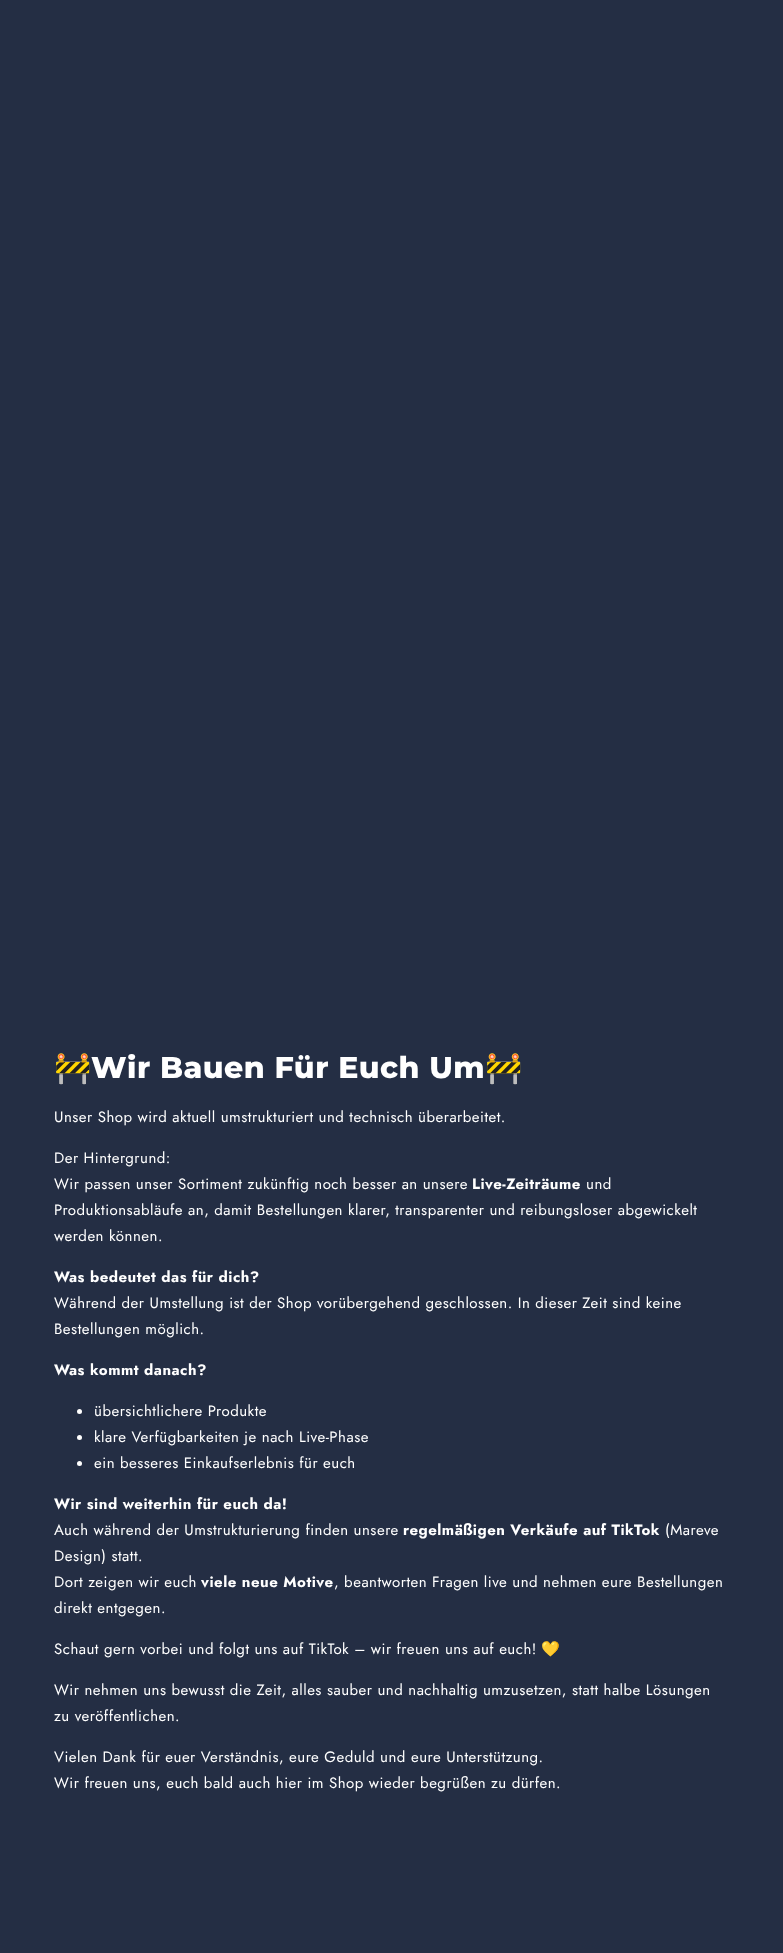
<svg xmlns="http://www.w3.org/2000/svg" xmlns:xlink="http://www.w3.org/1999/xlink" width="783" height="1953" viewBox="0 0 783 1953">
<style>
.cls-1{font:bold 30px Noto Color Emoji;letter-spacing:0.5px;fill:#ffffff}
.cls-2{font:800 30px Montserrat;letter-spacing:0.5px;fill:#ffffff}
.cls-3{font:15px Jost;letter-spacing:0.5px;fill:#ffffff}
.cls-4{font:bold 15px Jost;letter-spacing:0.5px;fill:#ffffff}
.cls-5{font:15px Noto Color Emoji;letter-spacing:0.5px;fill:#ffffff}
</style>
<rect width="100%" height="100%" fill="#242e44"/>
<circle fill="#ffffff" cx="79.5" cy="1411.5" r="2.5"/>
<circle fill="#ffffff" cx="79.5" cy="1437.5" r="2.5"/>
<circle fill="#ffffff" cx="79.5" cy="1463.5" r="2.5"/>
<text class="cls-1" x="54" y="1078">🚧</text>
<text class="cls-2" x="91" y="1078">Wir Bauen Für Euch Um</text>
<text class="cls-1" x="485" y="1078">🚧</text>
<text class="cls-3" x="54" y="1122">Unser Shop wird aktuell umstrukturiert und technisch überarbeitet.</text>
<text class="cls-3"><tspan x="54" y="1163">Der Hintergrund:</tspan><tspan x="54" y="1189">Wir passen unser Sortiment zukünftig noch besser an unsere</tspan></text>
<text class="cls-4" x="472" y="1189">Live-Zeiträume</text>
<text class="cls-3" x="586" y="1189">und</text>
<text class="cls-3"><tspan x="54" y="1215">Produktionsabläufe an, damit Bestellungen klarer, transparenter und reibungsloser abgewickelt</tspan><tspan x="54" y="1241">werden können.</tspan></text>
<text class="cls-4" x="54" y="1282">Was bedeutet das für dich?</text>
<text class="cls-3"><tspan x="54" y="1308">Während der Umstellung ist der Shop vorübergehend geschlossen. In dieser Zeit sind keine</tspan><tspan x="54" y="1334">Bestellungen möglich.</tspan></text>
<text class="cls-4" x="54" y="1375">Was kommt danach?</text>
<text class="cls-3"><tspan x="94" y="1416">übersichtlichere Produkte</tspan><tspan x="94" y="1442">klare Verfügbarkeiten je nach Live-Phase</tspan><tspan x="94" y="1468">ein besseres Einkaufserlebnis für euch</tspan></text>
<text class="cls-4" x="54" y="1509">Wir sind weiterhin für euch da!</text>
<text class="cls-3" x="54" y="1535">Auch während der Umstrukturierung finden unsere</text>
<text class="cls-4" x="403" y="1535">regelmäßigen Verkäufe auf TikTok</text>
<text class="cls-3" x="665" y="1535">(Mareve</text>
<text class="cls-3"><tspan x="54" y="1561">Design) statt.</tspan><tspan x="54" y="1587">Dort zeigen wir euch</tspan></text>
<text class="cls-4" x="201" y="1587">viele neue Motive</text>
<text class="cls-3" x="334" y="1587">, beantworten Fragen live und nehmen eure Bestellungen</text>
<text class="cls-3" x="54" y="1613">direkt entgegen.</text>
<text class="cls-3" x="54" y="1654">Schaut gern vorbei und folgt uns auf TikTok – wir freuen uns auf euch!</text>
<text class="cls-5" x="541" y="1654">💛</text>
<text class="cls-3"><tspan x="54" y="1695">Wir nehmen uns bewusst die Zeit, alles sauber und nachhaltig umzusetzen, statt halbe Lösungen</tspan><tspan x="54" y="1721">zu veröffentlichen.</tspan></text>
<text class="cls-3"><tspan x="54" y="1762">Vielen Dank für euer Verständnis, eure Geduld und eure Unterstützung.</tspan><tspan x="54" y="1788">Wir freuen uns, euch bald auch hier im Shop wieder begrüßen zu dürfen.</tspan></text>
</svg>
